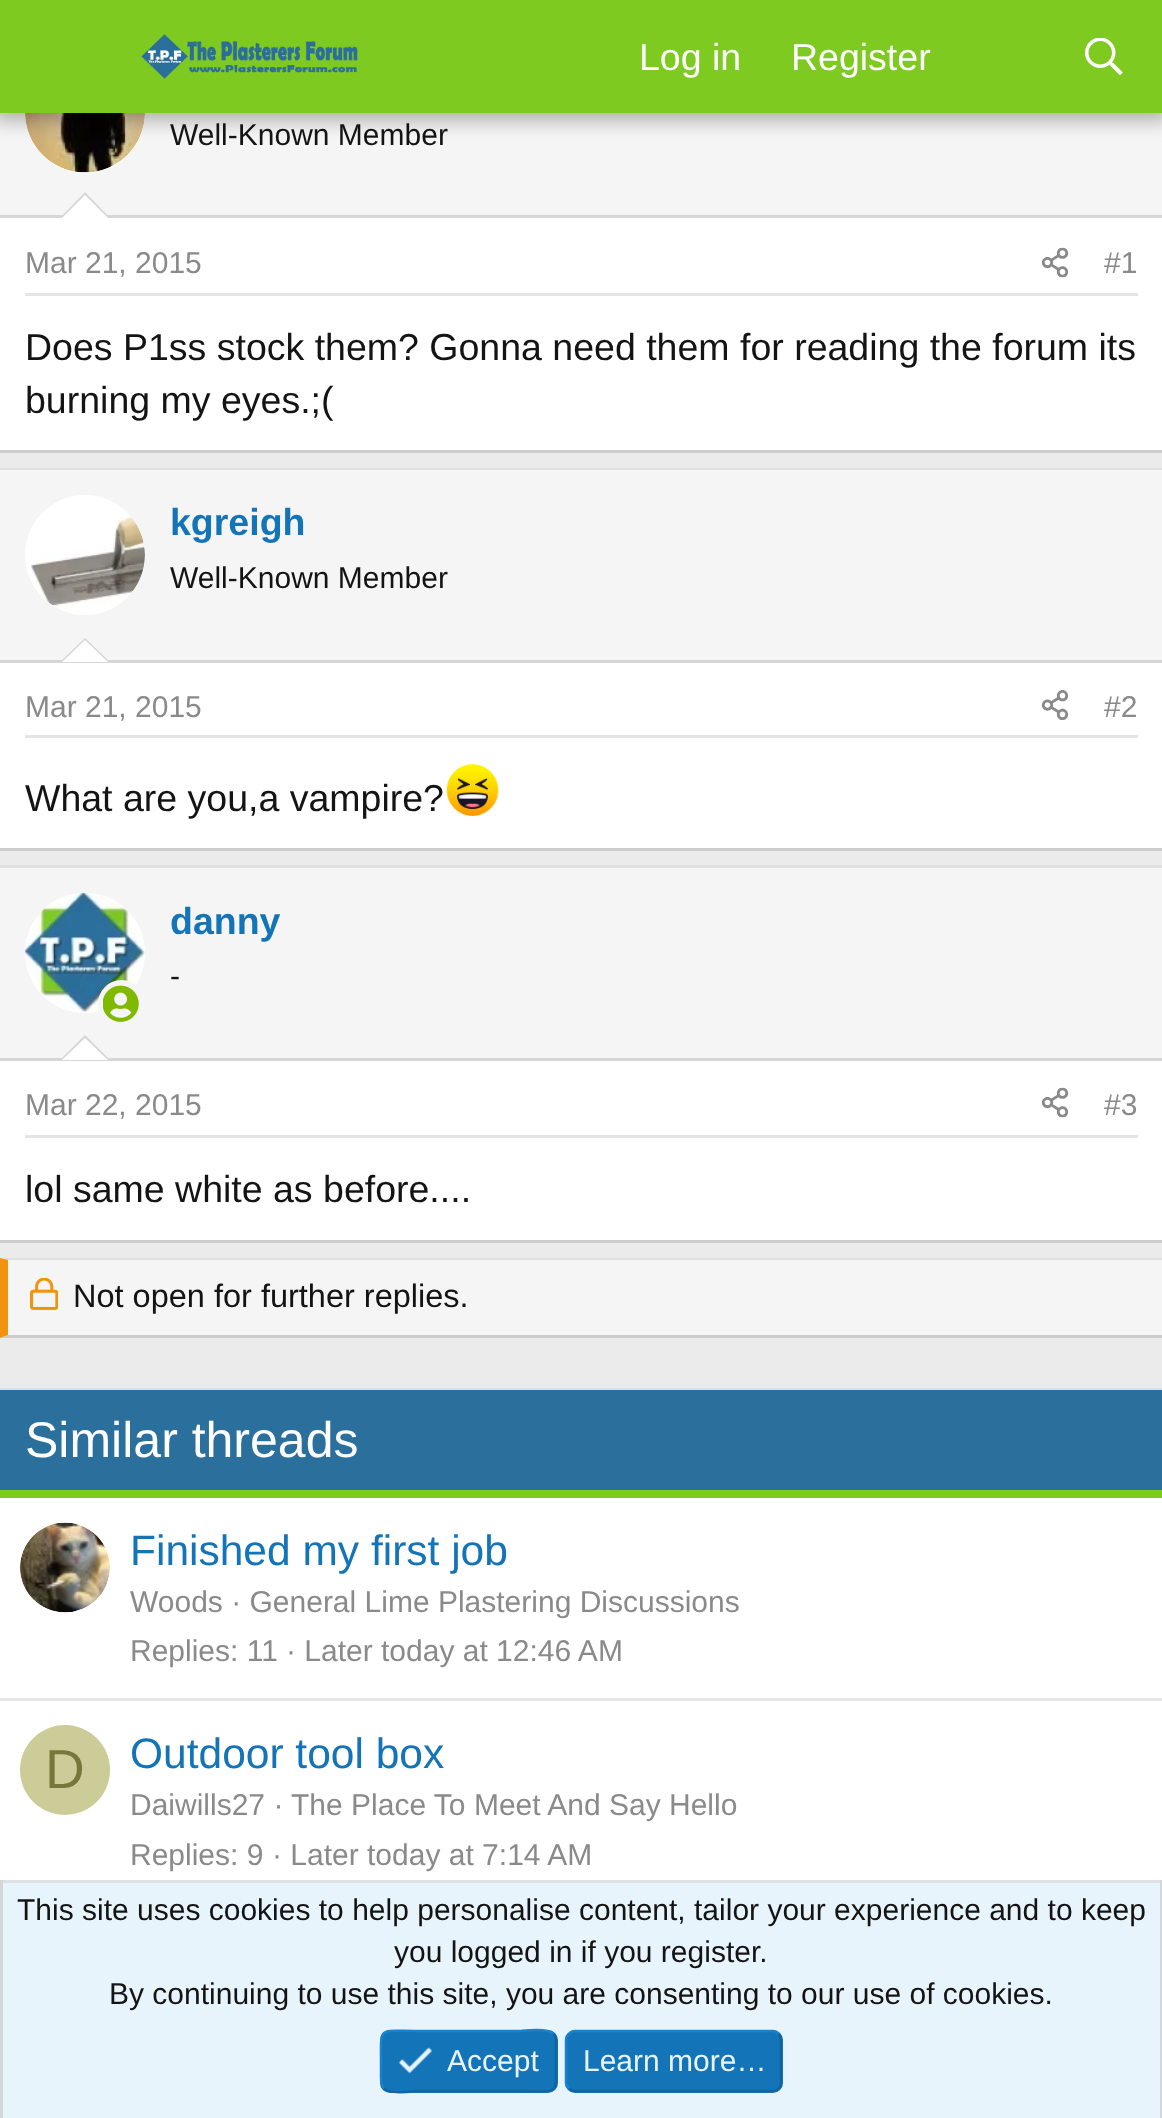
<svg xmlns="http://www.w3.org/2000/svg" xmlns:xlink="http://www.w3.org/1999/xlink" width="1162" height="2118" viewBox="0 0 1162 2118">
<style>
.cls-1{font:37.5px Liberation Sans;fill:#fefefe}
.cls-2{font:30px Liberation Sans;fill:#141414}
.cls-3{font:30px Liberation Sans;fill:#8a8a8a}
.cls-4{font:37.5px Liberation Sans;fill:#141414}
.cls-5{font:bold 37.5px Liberation Sans;fill:#1474b8}
.cls-6{font:32.5px Liberation Sans;fill:#141414}
.cls-7{font:50px Liberation Sans;fill:#fefefe}
.cls-8{font:42.5px Liberation Sans;fill:#1474b8}
.cls-9{font:55px Liberation Sans;fill:#77773c}
.cls-10{font:30px Liberation Sans;fill:#e8f4fc}
</style>
<rect width="100%" height="100%" fill="#ebebeb"/>
<rect fill="#f5f5f5" x="0" y="113" width="1162" height="102"/>
<circle fill="#ffffff" cx="85" cy="113" r="60"/>
<image xlink:href="image2.png" x="25" y="113" width="120" height="60"/>
<rect fill="#000000" fill-opacity="0.3" filter="blur(10px)" x="-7" y="-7" width="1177" height="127"/>
<rect fill="#7eca21" x="0" y="0" width="1162" height="113"/>
<image xlink:href="image0.png" x="141" y="34" width="221" height="45"/>
<image xlink:href="image1.png" x="1085" y="38" width="38" height="37"/>
<rect fill="#ffffff" x="0" y="218" width="1162" height="232"/>
<rect fill="#cccccc" x="0" y="450" width="1162" height="3"/>
<rect fill="#d6d6d6" x="0" y="215" width="1162" height="3"/>
<path fill="#d6d6d6" d="M110 218H60L85 192Z"/>
<path fill="#ffffff" d="M108 218H62L85 195Z"/>
<rect fill="#e5e5e5" x="25" y="293" width="1113" height="3"/>
<image xlink:href="image3.png" x="1041" y="247" width="28" height="31"/>
<rect fill="#ffffff" x="0" y="663" width="1162" height="185"/>
<rect fill="#e0e0e0" x="0" y="468" width="1162" height="2"/>
<rect fill="#cccccc" x="0" y="848" width="1162" height="3"/>
<rect fill="#f5f5f5" x="0" y="470" width="1162" height="190"/>
<rect fill="#d6d6d6" x="0" y="660" width="1162" height="3"/>
<circle fill="#ffffff" cx="85" cy="555" r="60"/>
<image xlink:href="image4.png" x="30" y="515" width="115" height="95"/>
<path fill="#d6d6d6" d="M110 662H60L85 638Z"/>
<path fill="#ffffff" d="M108 662H62L85 640Z"/>
<rect fill="#e5e5e5" x="25" y="735" width="1113" height="3"/>
<image xlink:href="image5.png" x="1041" y="690" width="28" height="30"/>
<image xlink:href="image6.png" x="446" y="764" width="53" height="52"/>
<rect fill="#ffffff" x="0" y="1061" width="1162" height="179"/>
<rect fill="#e0e0e0" x="0" y="865" width="1162" height="3"/>
<rect fill="#cccccc" x="0" y="1240" width="1162" height="3"/>
<rect fill="#f5f5f5" x="0" y="868" width="1162" height="190"/>
<rect fill="#d6d6d6" x="0" y="1058" width="1162" height="3"/>
<circle fill="#ffffff" cx="85" cy="953" r="60"/>
<image xlink:href="image7.png" x="25" y="892" width="120" height="120"/>
<rect fill="#f5f5f5" x="98" y="980" width="47" height="48" rx="23.5"/>
<image xlink:href="image8.png" x="103" y="985" width="36" height="37"/>
<path fill="#d6d6d6" d="M110 1060H60L85 1035Z"/>
<path fill="#ffffff" d="M108 1060H62L85 1038Z"/>
<rect fill="#e5e5e5" x="25" y="1135" width="1113" height="3"/>
<image xlink:href="image9.png" x="1041" y="1087" width="28" height="31"/>
<rect fill="#f5f5f5" x="0" y="1258" width="1162" height="80"/>
<path fill="#e0e0e0" d="M0 1258H1162V1260H8Z"/>
<path fill="#cccccc" d="M1162 1338H0L8 1335H1162Z"/>
<path fill="#f2930d" d="M0 1338V1258L8 1260V1335Z"/>
<image xlink:href="image10.png" x="30" y="1278" width="28" height="32"/>
<rect fill="#ffffff" x="0" y="1498" width="1162" height="382"/>
<rect fill="#e0e0e0" x="0" y="1388" width="1162" height="2"/>
<rect fill="#2b6f9c" x="0" y="1390" width="1162" height="100"/>
<rect fill="#7eca21" x="0" y="1490" width="1162" height="8"/>
<image xlink:href="image11.png" x="20" y="1522" width="90" height="91"/>
<rect fill="#e5e5e5" x="0" y="1698" width="1162" height="3"/>
<circle fill="#cccc99" cx="65" cy="1770" r="45"/>
<rect fill="#e8f4fc" x="3" y="1883" width="1157" height="235"/>
<rect fill="#e0e0e0" x="0" y="1880" width="1162" height="3"/>
<rect fill="#d6d6d6" x="1160" y="1880" width="2" height="238"/>
<rect fill="#d6d6d6" x="0" y="1880" width="3" height="238"/>
<rect fill="#1474b8" x="380" y="2030" width="178" height="63" rx="10"/>
<path fill="none" stroke="#1265a1" stroke-width="2.5" d="M553.5 2034C557 2037.5 556 2042.5 556 2047V2061C556 2096.5 559.5 2091 521 2091H416C415 2091 390 2095 384 2088.5"/>
<path fill="none" stroke="#1782cf" stroke-width="2.5" d="M384 2088.5C380.5 2085 381 2080 381 2075.5V2061C381 2026 378 2031 416 2031H521C522.5 2031 547.5 2027.5 553.5 2034"/>
<image xlink:href="image12.png" x="399" y="2047" width="33" height="27"/>
<rect fill="#1474b8" x="565" y="2030" width="218" height="63" rx="10"/>
<path fill="none" stroke="#1265a1" stroke-width="2.5" d="M778.5 2034C780.5 2035.5 781 2037.5 781 2040V2082.5C781 2085 780.5 2087 778.5 2088.5C777 2090.5 775 2091 772.5 2091H575C572.5 2091 570.5 2090.5 569 2088.5"/>
<path fill="none" stroke="#1782cf" stroke-width="2.5" d="M569 2088.5C567 2087 566 2085 566 2082.5V2040C566 2037.5 567 2035.5 569 2034C570.5 2032 572.5 2031 575 2031H772.5C775 2031 777 2032 778.5 2034"/>
<text class="cls-1" x="639" y="70">Log in</text>
<text class="cls-1" x="791" y="70">Register</text>
<text class="cls-2" x="170" y="145">Well-Known Member</text>
<text class="cls-3" x="25" y="273">Mar 21, 2015</text>
<text class="cls-3" x="1104" y="273">#1</text>
<text class="cls-4"><tspan x="25" y="360">Does P1ss stock them? Gonna need them for reading the forum its</tspan><tspan x="25" y="413">burning my eyes.;(</tspan></text>
<text class="cls-5" x="170" y="535">kgreigh</text>
<text class="cls-2" x="170" y="588">Well-Known Member</text>
<text class="cls-3" x="25" y="717">Mar 21, 2015</text>
<text class="cls-3" x="1104" y="717">#2</text>
<text class="cls-4" x="25" y="811">What are you,a vampire?</text>
<text class="cls-5" x="170" y="934">danny</text>
<text class="cls-2" x="170" y="986">-</text>
<text class="cls-3" x="25" y="1115">Mar 22, 2015</text>
<text class="cls-3" x="1104" y="1115">#3</text>
<text class="cls-4" x="25" y="1202">lol same white as before....</text>
<text class="cls-6" x="73" y="1307">Not open for further replies.</text>
<text class="cls-7" x="25" y="1457">Similar threads</text>
<text class="cls-8" x="130" y="1565">Finished my first job</text>
<text class="cls-3"><tspan x="130" y="1612">Woods · General Lime Plastering Discussions</tspan><tspan x="130" y="1661">Replies: 11</tspan></text>
<text class="cls-3" x="286" y="1661">· Later today at 12:46 AM</text>
<text class="cls-9" x="45" y="1788">D</text>
<text class="cls-8" x="130" y="1768">Outdoor tool box</text>
<text class="cls-3" x="130" y="1815">Daiwills27 ·</text>
<text class="cls-3" x="291" y="1815">The Place To Meet And Say Hello</text>
<text class="cls-3" x="130" y="1865">Replies: 9</text>
<text class="cls-3" x="272" y="1865">· Later today at 7:14 AM</text>
<text class="cls-2" x="17" y="1920">This site uses cookies to help personalise content, tailor your experience and to keep</text>
<text class="cls-2" x="394" y="1962">you logged in if you register.</text>
<text class="cls-2" x="109" y="2004">By continuing to use this site, you are consenting to our use of cookies.</text>
<text class="cls-10" x="447" y="2071">Accept</text>
<text class="cls-10" x="583" y="2071">Learn more…</text>
</svg>
